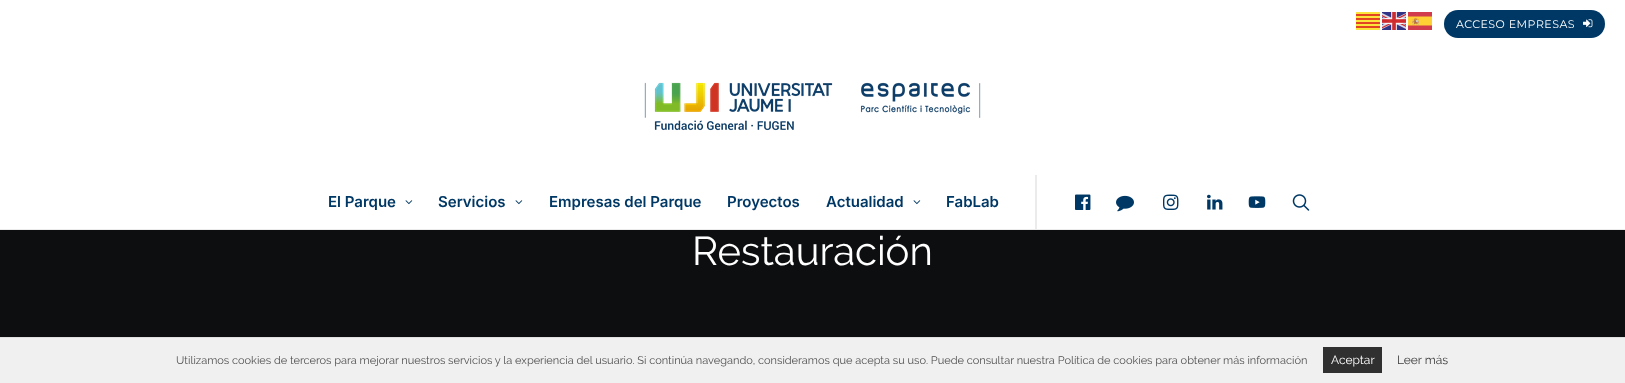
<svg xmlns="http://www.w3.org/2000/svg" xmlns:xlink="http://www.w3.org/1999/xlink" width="1625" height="383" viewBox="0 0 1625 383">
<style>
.cls-1{font:11px Montserrat;letter-spacing:0.5px;fill:#ffffff}
.cls-2{font:600 15px Inter;fill:#003865}
.cls-3{font:40px Raleway;fill:#ffffff}
.cls-4{font:11px Raleway;fill:#505050}
.cls-5{font:12px Raleway;fill:#ffffff}
.cls-6{font:12px Raleway;fill:#404040}
</style>
<rect width="100%" height="100%" fill="#ffffff"/>
<image xlink:href="image0.png" x="1356" y="12" width="24" height="18"/>
<image xlink:href="image1.png" x="1382" y="12" width="24" height="18"/>
<image xlink:href="image2.png" x="1408" y="12" width="24" height="18"/>
<rect fill="#003865" x="1444" y="10" width="161" height="28" rx="14"/>
<image xlink:href="image3.png" x="1583" y="19" width="10" height="9"/>
<image xlink:href="image4.png" x="644" y="82" width="337" height="49"/>
<image xlink:href="image5.png" x="405" y="200" width="8" height="5"/>
<image xlink:href="image5.png" x="515" y="200" width="8" height="5"/>
<image xlink:href="image5.png" x="913" y="200" width="8" height="5"/>
<rect fill="#ebebeb" x="1035" y="175" width="2" height="54"/>
<image xlink:href="image6.png" x="1075" y="194" width="16" height="16"/>
<image xlink:href="image7.png" x="1116" y="195" width="18" height="17"/>
<image xlink:href="image8.png" x="1163" y="194" width="16" height="16"/>
<image xlink:href="image9.png" x="1207" y="194" width="16" height="16"/>
<image xlink:href="image10.png" x="1248" y="196" width="18" height="12"/>
<image xlink:href="image11.png" x="1292" y="194" width="18" height="17"/>
<rect fill="#ebebeb" x="0" y="229" width="1625" height="1"/>
<rect fill="#0d0e10" x="0" y="230" width="1625" height="107"/>
<rect fill="#f0f0f0" x="0" y="338" width="1625" height="45"/>
<rect fill="#e0e0e0" x="0" y="337" width="1625" height="1"/>
<rect fill="#303030" x="1323" y="347" width="59" height="26"/>
<text class="cls-1" x="1456" y="28">ACCESO EMPRESAS</text>
<text class="cls-2" x="328" y="207">El Parque</text>
<text class="cls-2" x="438" y="207">Servicios</text>
<text class="cls-2" x="549" y="207">Empresas del Parque</text>
<text class="cls-2" x="727" y="207">Proyectos</text>
<text class="cls-2" x="826" y="207">Actualidad</text>
<text class="cls-2" x="946" y="207">FabLab</text>
<text class="cls-3" x="692" y="265">Restauración</text>
<text class="cls-4" x="176" y="364">Utilizamos cookies de terceros para mejorar nuestros servicios y la experiencia del usuario. Si continúa navegando, consideramos que acepta su uso. Puede consultar nuestra Política de cookies para obtener más información</text>
<text class="cls-5" x="1331" y="364">Aceptar</text>
<text class="cls-6" x="1397" y="364">Leer más</text>
</svg>
